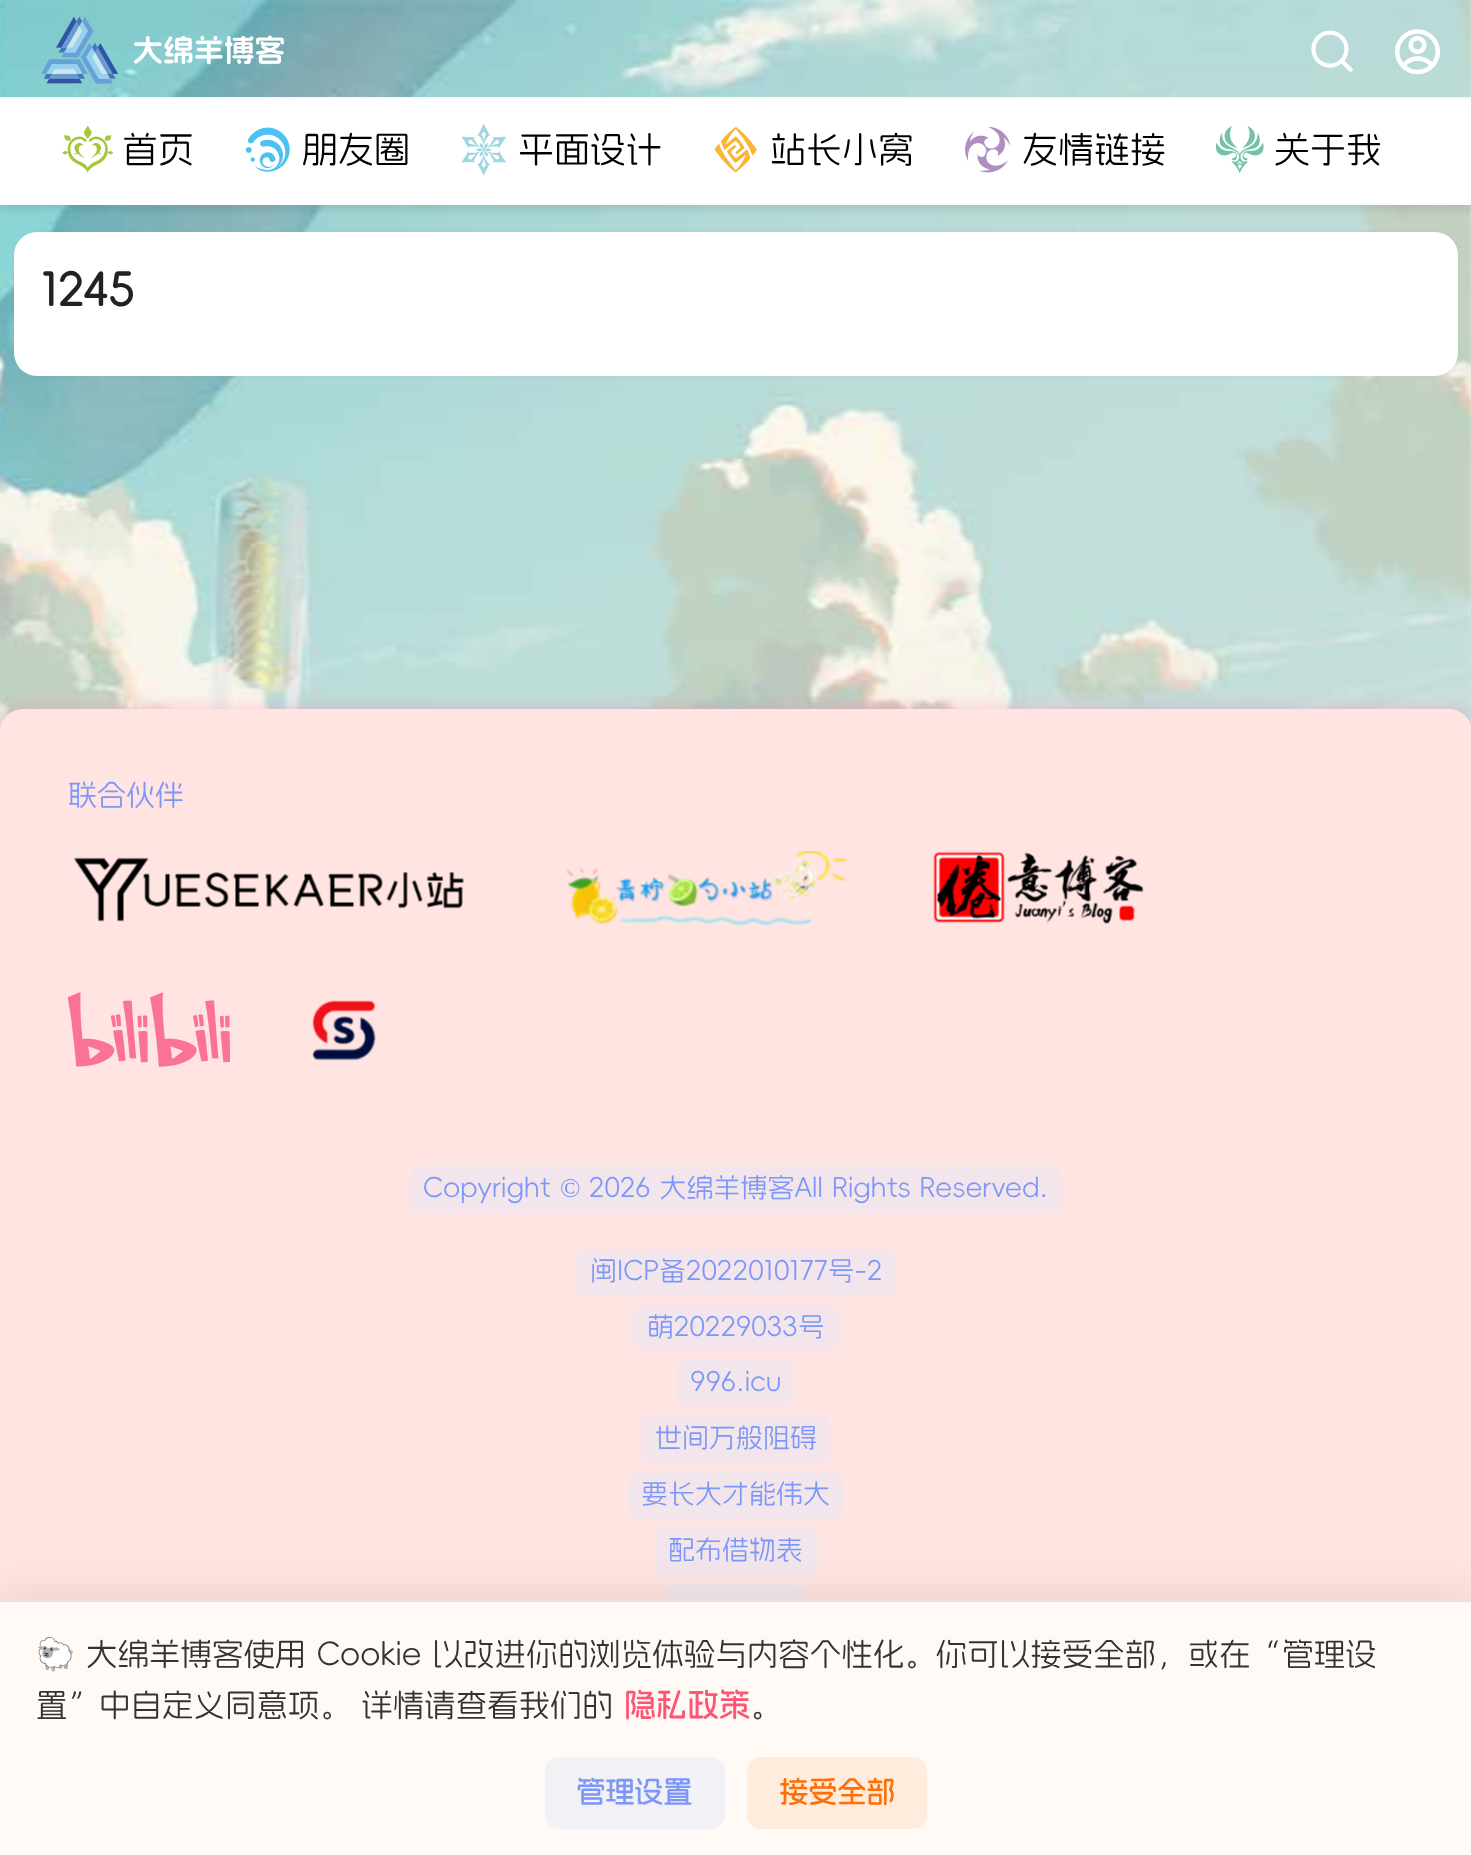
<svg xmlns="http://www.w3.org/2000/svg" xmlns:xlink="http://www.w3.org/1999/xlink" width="1471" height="1855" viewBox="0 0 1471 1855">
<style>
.cls-1{font:36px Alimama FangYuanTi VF;fill:#000000}
.cls-2{font:bold 45px Alimama FangYuanTi VF;fill:#222222}
.cls-3{font:29px Alimama FangYuanTi VF;fill:#7d97f9}
.cls-4{font:27px Alimama FangYuanTi VF;fill:#7d97f9}
.cls-5{font:27px Liberation Serif;fill:#7d97f9}
.cls-6{font:31.5px Noto Color Emoji;fill:#333333}
.cls-7{font:31.5px Alimama FangYuanTi VF;fill:#333333}
.cls-8{font:bold 31.5px Alimama FangYuanTi VF;fill:#ff5473}
.cls-9{font:bold 29px Alimama FangYuanTi VF;fill:#7d97f9}
.cls-10{font:bold 29px Alimama FangYuanTi VF;fill:#ff6f06}
</style>
<defs>
<clipPath id="clip1"><rect x="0" y="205" width="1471" height="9"/></clipPath>
</defs>
<rect width="100%" height="100%" fill="#ffffff"/>
<image xlink:href="image0.png" x="0" y="0" width="1471" height="732"/>
<g clip-path="url(#clip1)">
<rect fill="#000000" fill-opacity="0.1" filter="blur(5.5px)" x="0" y="5" width="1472" height="204"/>
</g>
<image xlink:href="image1.png" x="1311" y="30" width="43" height="43"/>
<image xlink:href="image2.png" x="1395" y="29" width="45" height="46"/>
<rect fill="#ffffff" x="0" y="99" width="1471" height="106"/>
<rect fill="#f8f8f8" x="0" y="97" width="1471" height="2"/>
<image xlink:href="image3.png" x="41" y="16" width="243" height="68"/>
<image xlink:href="image4.png" x="62" y="125" width="52" height="49"/>
<image xlink:href="image5.png" x="245" y="127" width="45" height="45"/>
<image xlink:href="image6.png" x="461" y="123" width="46" height="53"/>
<image xlink:href="image7.png" x="714" y="126" width="43" height="47"/>
<image xlink:href="image8.png" x="965" y="126" width="46" height="47"/>
<image xlink:href="image9.png" x="1215" y="126" width="49" height="48"/>
<rect fill="#627c99" fill-opacity="0.1" filter="blur(2px)" x="14" y="232" width="1444" height="144" rx="23"/>
<rect fill="#ffffff" x="14" y="232" width="1444" height="144" rx="23"/>
<rect fill="#ff70ad" fill-opacity="0.35" filter="blur(9px)" x="0" y="709" width="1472" height="1114" rx="23"/>
<rect fill="#ffe4e1" x="0" y="709" width="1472" height="1114" rx="23"/>
<image xlink:href="image10.png" x="74" y="857" width="390" height="65"/>
<image xlink:href="image11.png" x="566" y="851" width="281" height="75"/>
<image xlink:href="image12.png" x="933" y="851" width="211" height="73"/>
<image xlink:href="image13.png" x="68" y="992" width="162" height="75"/>
<image xlink:href="image14.png" x="312" y="1000" width="64" height="61"/>
<rect fill="#f2e6ec" x="410" y="1166" width="652" height="47" rx="9"/>
<rect fill="#f2e6ec" x="576" y="1249" width="320" height="47" rx="9"/>
<rect fill="#f2e6ec" x="632" y="1305" width="207" height="45" rx="9"/>
<rect fill="#f2e6ec" x="677" y="1359" width="117" height="47" rx="9"/>
<rect fill="#f2e6ec" x="641" y="1415" width="189" height="48" rx="9"/>
<rect fill="#f2e6ec" x="628" y="1472" width="216" height="47" rx="9"/>
<rect fill="#f2e6ec" x="655" y="1528" width="162" height="47" rx="9"/>
<rect fill="#f2e6ec" x="668" y="1584" width="135" height="45" rx="9"/>
<rect fill="#000000" fill-opacity="0.06" filter="blur(18px)" x="0" y="1586" width="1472" height="257"/>
<rect fill="#fffaf5" x="0" y="1602" width="1471" height="253"/>
<rect fill="#f2dede" x="0" y="1600" width="1471" height="2"/>
<rect fill="#f2f1f6" x="545" y="1757" width="180" height="72" rx="14"/>
<rect fill="#ffecdd" x="747" y="1757" width="180" height="72" rx="14"/>
<text class="cls-1" x="122" y="162">首页</text>
<text class="cls-1" x="302" y="162">朋友圈</text>
<text class="cls-1" x="518" y="162">平面设计</text>
<text class="cls-1" x="770" y="162">站长小窝</text>
<text class="cls-1" x="1022" y="162">友情链接</text>
<text class="cls-1" x="1274" y="162">关于我</text>
<text class="cls-2" x="41" y="306">1245</text>
<text class="cls-3" x="68" y="805">联合伙伴</text>
<text class="cls-4" x="423" y="1197">Copyright</text>
<text class="cls-5" x="560" y="1197">©</text>
<text class="cls-4" x="589" y="1197">2026 大绵羊博客All Rights Reserved.</text>
<text class="cls-4" x="590" y="1280">闽ICP备2022010177号-2</text>
<text class="cls-4" x="647" y="1336">萌20229033号</text>
<text class="cls-4" x="690" y="1391">996.icu</text>
<text class="cls-4" x="655" y="1447">世间万般阻碍</text>
<text class="cls-4" x="641" y="1503">要长大才能伟大</text>
<text class="cls-4" x="668" y="1559">配布借物表</text>
<text class="cls-6" x="36" y="1665">🐑</text>
<text class="cls-7" x="86" y="1665">大绵羊博客使用 Cookie 以改进你的浏览体验与内容个性化。你可以接受全部，或在“管理设</text>
<text class="cls-7" x="36" y="1716">置”中自定义同意项。 详情请查看我们的</text>
<text class="cls-8" x="624" y="1716">隐私政策</text>
<text class="cls-7" x="750" y="1716">。</text>
<text class="cls-9" x="576" y="1802">管理设置</text>
<text class="cls-10" x="779" y="1802">接受全部</text>
</svg>
